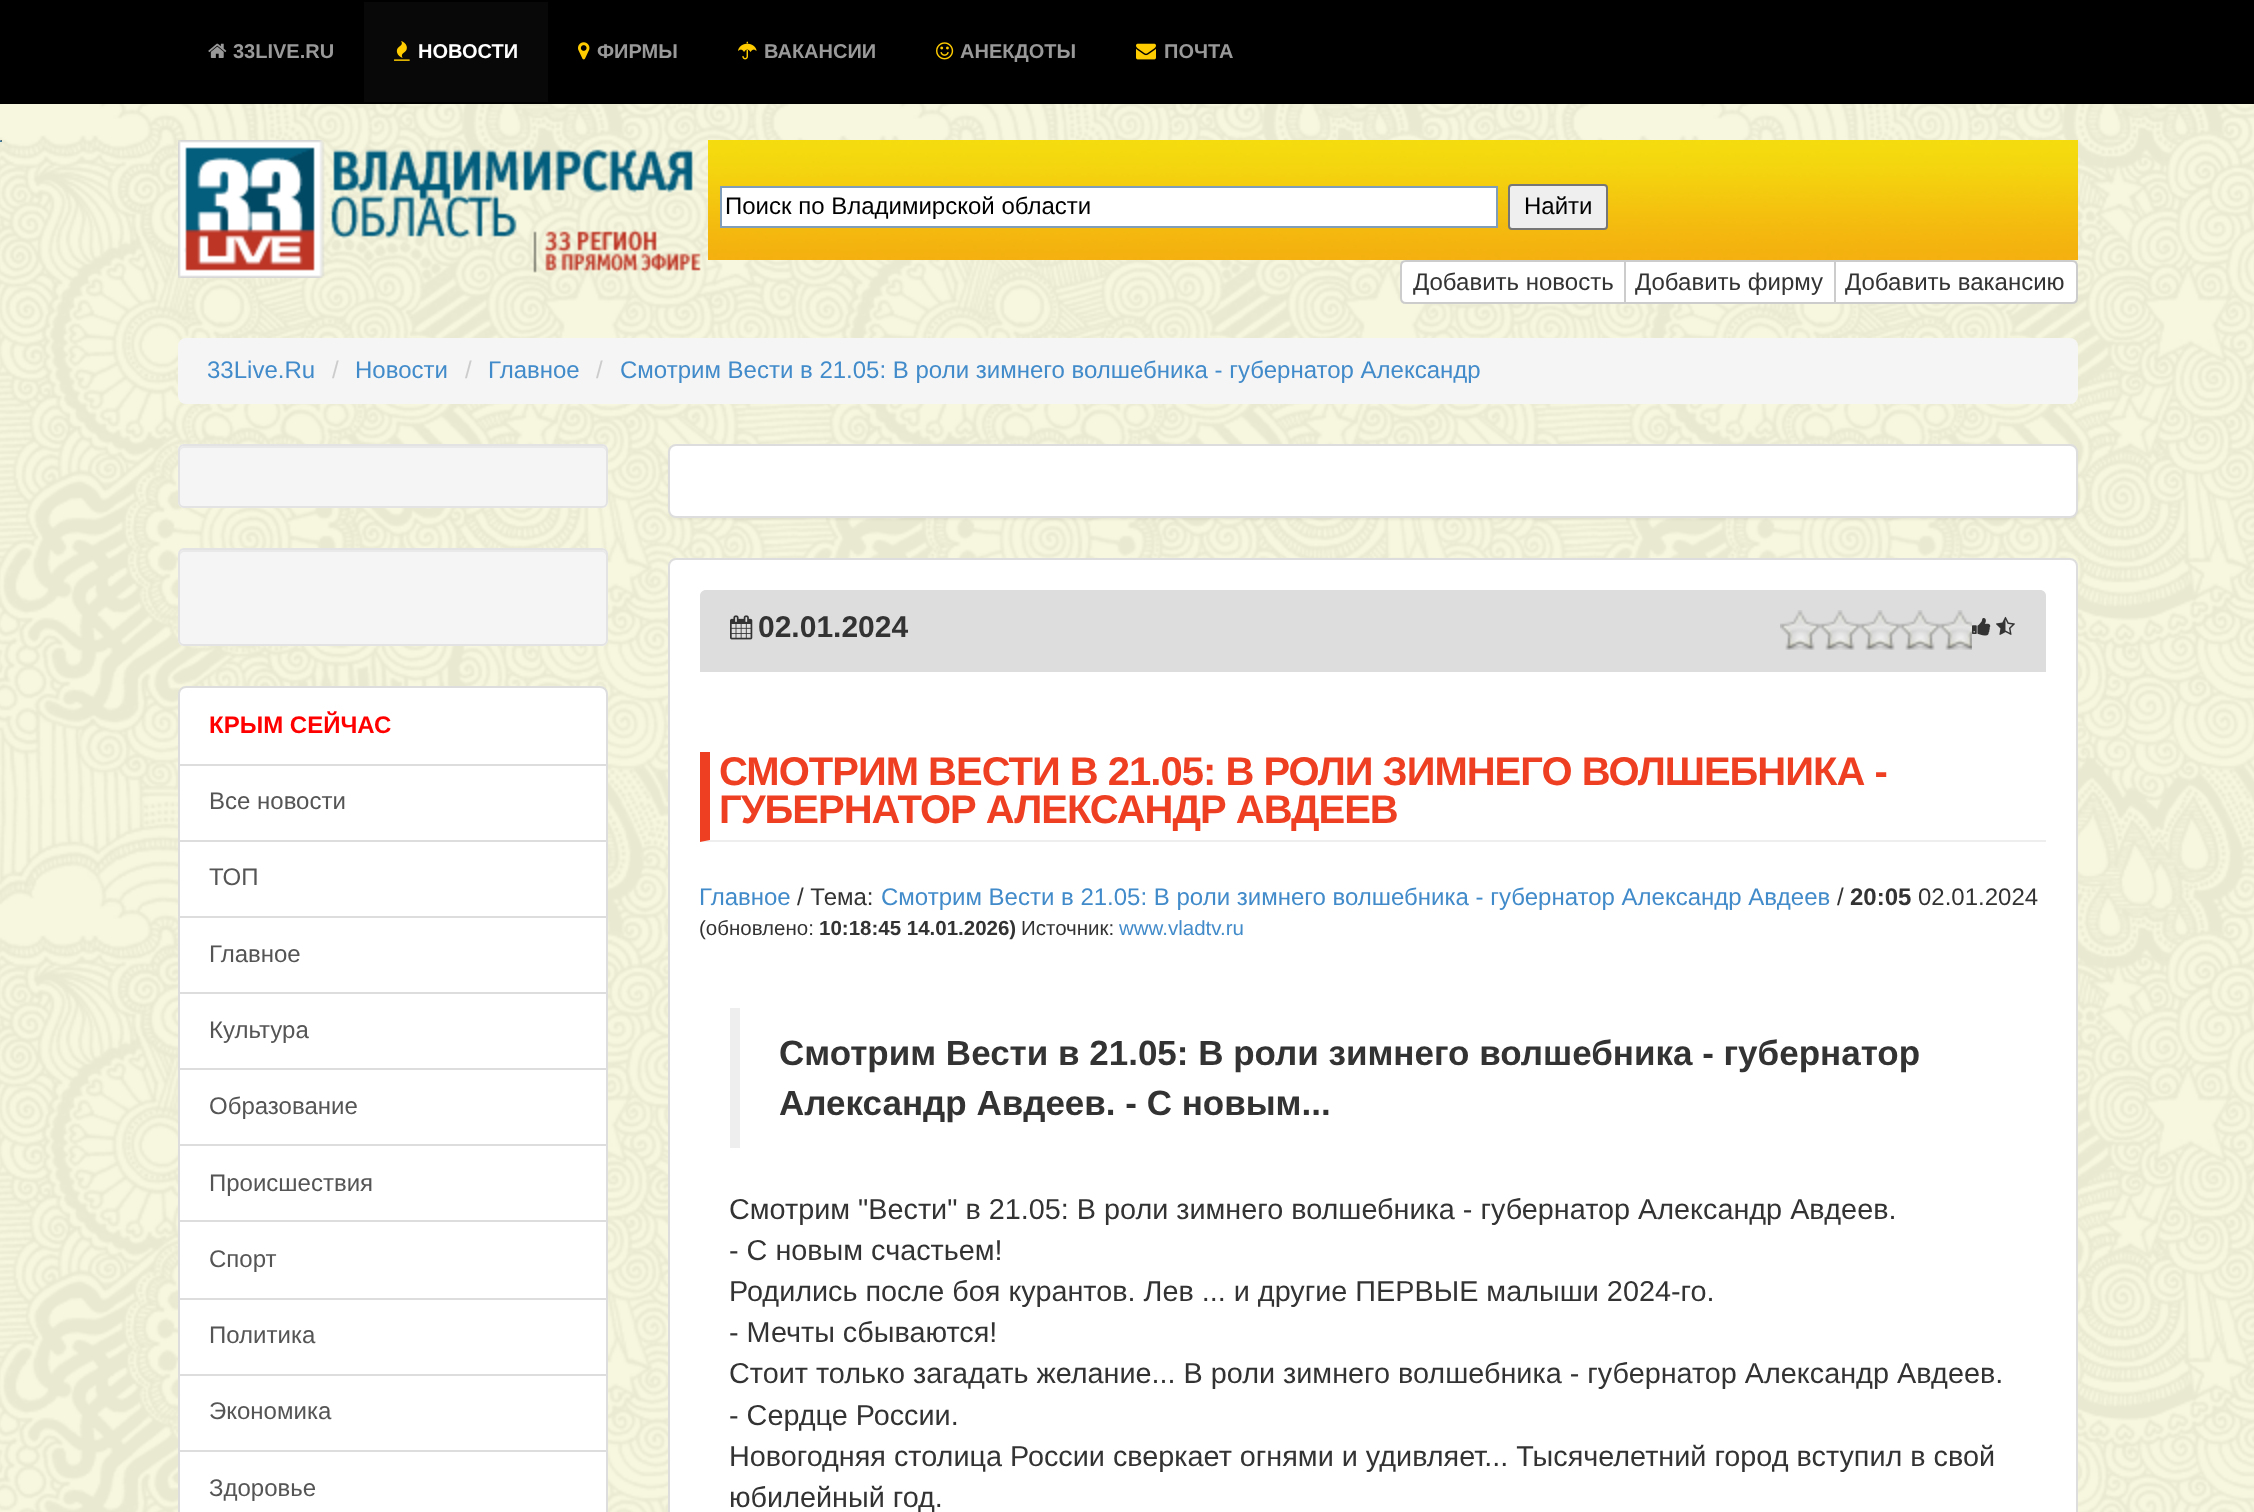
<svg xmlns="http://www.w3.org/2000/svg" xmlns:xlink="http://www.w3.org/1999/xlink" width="2254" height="1512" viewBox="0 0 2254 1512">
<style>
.cls-1{font:bold 20px Liberation Sans;fill:#999999}
.cls-2{font:bold 20px Liberation Sans;fill:#ffffff}
.cls-3{font:24px Liberation Sans;fill:#000000}
.cls-4{font:24px Liberation Sans;fill:#333333}
.cls-5{font:24px Liberation Sans;fill:#428bca}
.cls-6{font:24px Liberation Sans;fill:#cccccc}
.cls-7{font:bold 24px Liberation Sans;fill:#ff0000}
.cls-8{font:24px Liberation Sans;fill:#555555}
.cls-9{font:bold 30px Liberation Sans;fill:#333333}
.cls-10{font:bold 40px Liberation Sans;letter-spacing:-1px;fill:#ef3f23}
.cls-11{font:bold 24px Liberation Sans;fill:#333333}
.cls-12{font:20.5px Liberation Sans;fill:#333333}
.cls-13{font:bold 20.5px Liberation Sans;fill:#333333}
.cls-14{font:20.5px Liberation Sans;fill:#428bca}
.cls-15{font:bold 35px Liberation Sans;fill:#333333}
.cls-16{font:28.8px Liberation Sans;fill:#333333}
</style>
<rect width="100%" height="100%" fill="#ffffff"/>
<image xlink:href="image0.png" x="0" y="104" width="2254" height="1408"/>
<rect fill="#000000" x="0" y="0" width="2254" height="104"/>
<image xlink:href="image1.png" x="208" y="43" width="19" height="15"/>
<rect fill="#080808" x="364" y="2" width="184" height="100"/>
<image xlink:href="image2.png" x="394" y="41" width="16" height="20"/>
<image xlink:href="image3.png" x="578" y="42" width="12" height="18"/>
<image xlink:href="image4.png" x="738" y="41" width="19" height="19"/>
<image xlink:href="image5.png" x="936" y="42" width="18" height="18"/>
<image xlink:href="image6.png" x="1136" y="43" width="20" height="17"/>
<image xlink:href="image7.png" x="0" y="140" width="2" height="2"/>
<image xlink:href="image8.png" x="178" y="140" width="523" height="138"/>
<image xlink:href="image9.png" x="708" y="140" width="1370" height="120"/>
<rect fill="#ffffff" stroke="#7f9db9" stroke-width="2" x="721" y="187" width="776" height="40"/>
<rect fill="#efefef" stroke="#767676" stroke-width="2" x="1509" y="185" width="98" height="44" rx="3"/>
<path fill="#ffffff" stroke="#cccccc" stroke-width="2" d="M1406 261H1625V303H1406C1403 303 1401 301 1401 298V266C1401 263 1403 261 1406 261Z"/>
<rect fill="#ffffff" stroke="#cccccc" stroke-width="2" x="1625" y="261" width="210" height="42"/>
<path fill="#ffffff" stroke="#cccccc" stroke-width="2" d="M1835 261H2072C2075 261 2077 263 2077 266V298C2077 301 2075 303 2072 303H1835Z"/>
<rect fill="#f5f5f5" x="178" y="338" width="1900" height="66" rx="8"/>
<rect fill="#f5f5f5" x="178" y="444" width="430" height="64" rx="6"/>
<path fill="#e9e9e9" d="M184 448H602C604 448 606 450 606 452V450C606 448 604 446 602 446H184C182 446 180 448 180 450V452C180 450 182 448 184 448Z"/>
<rect fill="none" stroke="#e3e3e3" stroke-width="2" x="179" y="445" width="428" height="62" rx="5"/>
<rect fill="#f5f5f5" x="178" y="548" width="430" height="98" rx="6"/>
<path fill="#e9e9e9" d="M184 552H602C604 552 606 554 606 556V554C606 552 604 550 602 550H184C182 550 180 552 180 554V556C180 554 182 552 184 552Z"/>
<rect fill="none" stroke="#e3e3e3" stroke-width="2" x="179" y="549" width="428" height="96" rx="5"/>
<path fill="#ffffff" stroke="#dddddd" stroke-width="2" d="M186 687H600C604 687 607 690 607 694V765H179V694C179 690 182 687 186 687Z"/>
<rect fill="#ffffff" stroke="#dddddd" stroke-width="2" x="179" y="765" width="428" height="76"/>
<rect fill="#ffffff" stroke="#dddddd" stroke-width="2" x="179" y="841" width="428" height="76"/>
<rect fill="#ffffff" stroke="#dddddd" stroke-width="2" x="179" y="917" width="428" height="76"/>
<rect fill="#ffffff" stroke="#dddddd" stroke-width="2" x="179" y="993" width="428" height="76"/>
<rect fill="#ffffff" stroke="#dddddd" stroke-width="2" x="179" y="1069" width="428" height="76"/>
<rect fill="#ffffff" stroke="#dddddd" stroke-width="2" x="179" y="1145" width="428" height="76"/>
<rect fill="#ffffff" stroke="#dddddd" stroke-width="2" x="179" y="1221" width="428" height="78"/>
<rect fill="#ffffff" stroke="#dddddd" stroke-width="2" x="179" y="1299" width="428" height="76"/>
<rect fill="#ffffff" stroke="#dddddd" stroke-width="2" x="179" y="1375" width="428" height="76"/>
<rect fill="#ffffff" stroke="#dddddd" stroke-width="2" x="179" y="1451" width="428" height="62"/>
<rect fill="#000000" fill-opacity="0.05" filter="blur(1px)" x="668" y="446" width="1410" height="74" rx="8"/>
<rect fill="#ffffff" stroke="#dddddd" stroke-width="2" x="669" y="445" width="1408" height="72" rx="7"/>
<rect fill="#ffffff" stroke="#dddddd" stroke-width="2" x="669" y="559" width="1408" height="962" rx="7"/>
<path fill="#dddddd" d="M706 590H2040C2043.5 590 2046 592.5 2046 596V672H700V596C700 592.5 702.5 590 706 590Z"/>
<image xlink:href="image10.png" x="730" y="615" width="23" height="25"/>
<image xlink:href="image11.png" x="1780" y="610" width="192" height="40"/>
<image xlink:href="image12.png" x="1972" y="618" width="19" height="18"/>
<image xlink:href="image13.png" x="1996" y="616" width="19" height="19"/>
<path fill="#eeeeee" d="M2046 842H700L710 840H2046Z"/>
<path fill="#ef3f23" d="M700 842V752H710V840Z"/>
<rect fill="#eeeeee" x="730" y="1008" width="10" height="140"/>
<text class="cls-1" x="233" y="58">33LIVE.RU</text>
<text class="cls-2" x="418" y="58">НОВОСТИ</text>
<text class="cls-1" x="597" y="58">ФИРМЫ</text>
<text class="cls-1" x="764" y="58">ВАКАНСИИ</text>
<text class="cls-1" x="960" y="58">АНЕКДОТЫ</text>
<text class="cls-1" x="1164" y="58">ПОЧТА</text>
<text class="cls-3" x="725" y="214">Поиск по Владимирской области</text>
<text class="cls-3" x="1524" y="214">Найти</text>
<text class="cls-4" x="1413" y="290">Добавить новость</text>
<text class="cls-4" x="1635" y="290">Добавить фирму</text>
<text class="cls-4" x="1845" y="290">Добавить вакансию</text>
<text class="cls-5" x="207" y="378">33Live.Ru</text>
<text class="cls-6" x="332" y="378">/</text>
<text class="cls-5" x="355" y="378">Новости</text>
<text class="cls-6" x="465" y="378">/</text>
<text class="cls-5" x="488" y="378">Главное</text>
<text class="cls-6" x="596" y="378">/</text>
<text class="cls-5" x="620" y="378">Смотрим Вести в 21.05: В роли зимнего волшебника - губернатор Александр</text>
<text class="cls-7" x="209" y="733">КРЫМ СЕЙЧАС</text>
<text class="cls-8" x="209" y="809">Все новости</text>
<text class="cls-8" x="209" y="885">ТОП</text>
<text class="cls-8" x="209" y="962">Главное</text>
<text class="cls-8" x="209" y="1038">Культура</text>
<text class="cls-8" x="209" y="1114">Образование</text>
<text class="cls-8" x="209" y="1191">Происшествия</text>
<text class="cls-8" x="209" y="1267">Спорт</text>
<text class="cls-8" x="209" y="1343">Политика</text>
<text class="cls-8" x="209" y="1419">Экономика</text>
<text class="cls-8" x="209" y="1496">Здоровье</text>
<text class="cls-9" x="758" y="637">02.01.2024</text>
<text class="cls-10"><tspan x="719" y="785">СМОТРИМ ВЕСТИ В 21.05: В РОЛИ ЗИМНЕГО ВОЛШЕБНИКА -</tspan><tspan x="719" y="823">ГУБЕРНАТОР АЛЕКСАНДР АВДЕЕВ</tspan></text>
<text class="cls-5" x="699" y="905">Главное</text>
<text class="cls-4" x="797" y="905">/ Тема:</text>
<text class="cls-5" x="881" y="905">Смотрим Вести в 21.05: В роли зимнего волшебника - губернатор Александр Авдеев</text>
<text class="cls-4" x="1837" y="905">/</text>
<text class="cls-11" x="1850" y="905">20:05</text>
<text class="cls-4" x="1918" y="905">02.01.2024</text>
<text class="cls-12" x="699" y="935">(обновлено:</text>
<text class="cls-13" x="819" y="935">10:18:45 14.01.2026)</text>
<text class="cls-12" x="1021" y="935">Источник:</text>
<text class="cls-14" x="1119" y="935">www.vladtv.ru</text>
<text class="cls-15"><tspan x="779" y="1065">Смотрим Вести в 21.05: В роли зимнего волшебника - губернатор</tspan><tspan x="779" y="1115">Александр Авдеев. - С новым...</tspan></text>
<text class="cls-16"><tspan x="729" y="1219">Смотрим "Вести" в 21.05: В роли зимнего волшебника - губернатор Александр Авдеев.</tspan><tspan x="729" y="1260">- С новым счастьем!</tspan><tspan x="729" y="1301">Родились после боя курантов. Лев ... и другие ПЕРВЫЕ малыши 2024-го.</tspan><tspan x="729" y="1342">- Мечты сбываются!</tspan><tspan x="729" y="1383">Стоит только загадать желание... В роли зимнего волшебника - губернатор Александр Авдеев.</tspan><tspan x="729" y="1425">- Сердце России.</tspan><tspan x="729" y="1466">Новогодняя столица России сверкает огнями и удивляет... Тысячелетний город вступил в свой</tspan><tspan x="729" y="1507">юбилейный год.</tspan></text>
</svg>
